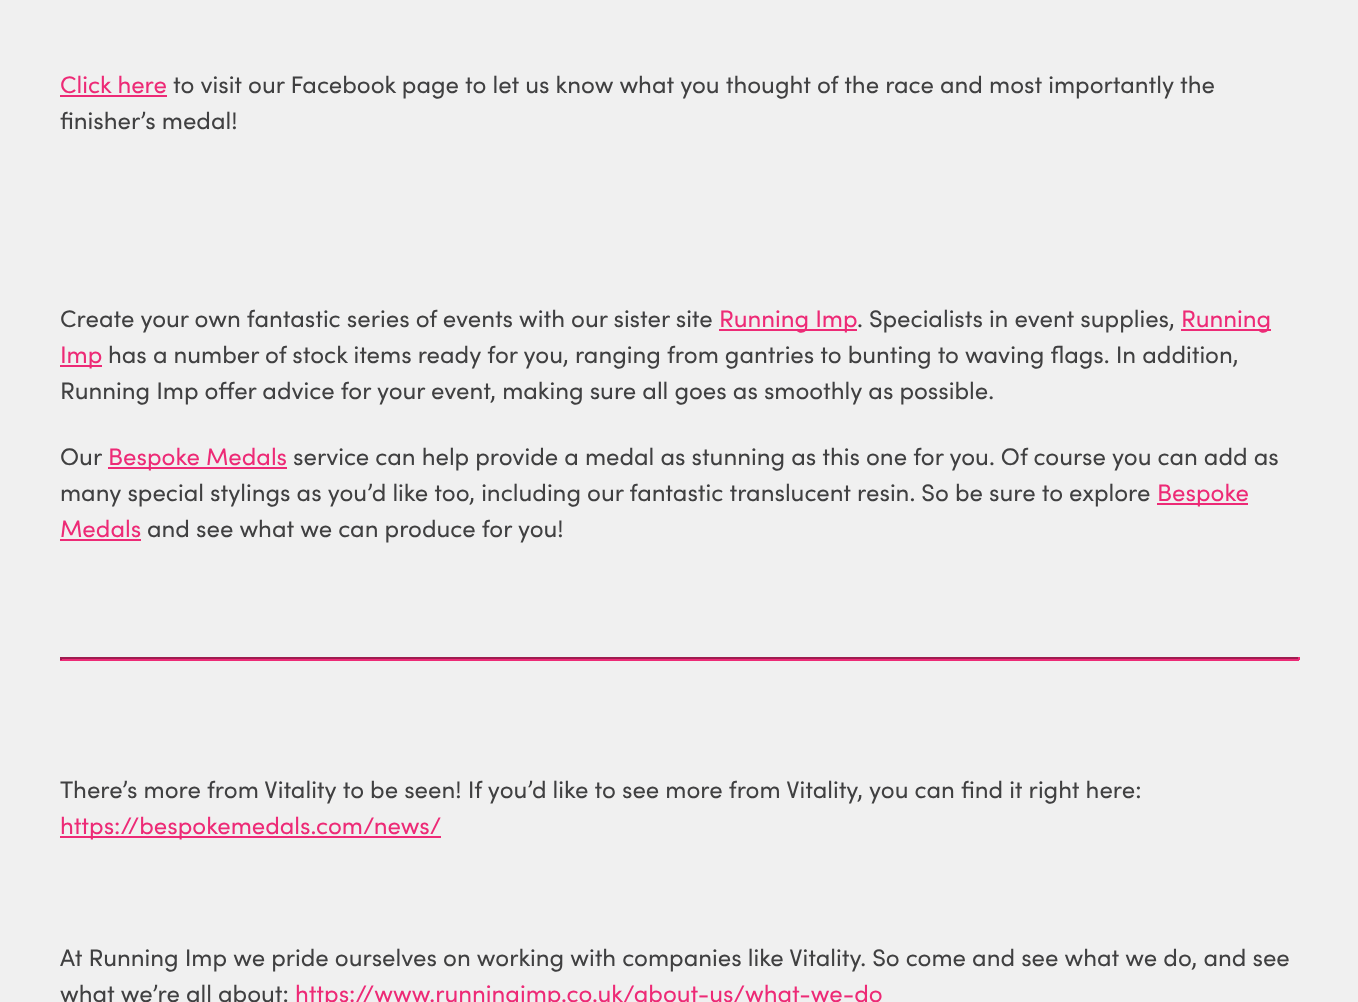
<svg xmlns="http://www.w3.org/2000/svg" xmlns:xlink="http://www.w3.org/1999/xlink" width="1358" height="1002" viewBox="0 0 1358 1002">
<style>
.cls-1{font:24px Sofia;fill:#ed2a76}
.cls-2{font:24px Sofia;fill:#404041}
</style>
<rect width="100%" height="100%" fill="#f0f0f0"/>
<rect fill="#ed2a76" x="60" y="95" width="107" height="2"/>
<rect fill="#ed2a76" x="719" y="329" width="138" height="2"/>
<rect fill="#ed2a76" x="1181" y="329" width="90" height="2"/>
<rect fill="#ed2a76" x="60" y="365" width="42" height="2"/>
<rect fill="#ed2a76" x="108" y="467" width="179" height="2"/>
<rect fill="#ed2a76" x="1157" y="503" width="91" height="2"/>
<rect fill="#ed2a76" x="60" y="539" width="81" height="2"/>
<rect fill="#9e1c4f" x="60" y="657" width="1239" height="2"/>
<rect fill="#ed2a76" x="1298" y="657" width="2" height="3"/>
<rect fill="#ed2a76" x="60" y="659" width="1239" height="2"/>
<rect fill="#9e1c4f" x="60" y="657" width="2" height="3"/>
<rect fill="#ed2a76" x="60" y="836" width="381" height="2"/>
<text class="cls-1" x="60" y="93">Click here</text>
<text class="cls-2" x="173" y="93">to visit our Facebook page to let us know what you thought of the race and most importantly the</text>
<text class="cls-2" x="60" y="129">finisher’s medal!</text>
<text class="cls-2" x="60" y="327">Create your own fantastic series of events with our sister site</text>
<text class="cls-1" x="719" y="327">Running Imp</text>
<text class="cls-2" x="857" y="327">. Specialists in event supplies,</text>
<text class="cls-1" x="1181" y="327">Running</text>
<text class="cls-1" x="60" y="363">Imp</text>
<text class="cls-2" x="108" y="363">has a number of stock items ready for you, ranging from gantries to bunting to waving flags. In addition,</text>
<text class="cls-2" x="60" y="399">Running Imp offer advice for your event, making sure all goes as smoothly as possible.</text>
<text class="cls-2" x="60" y="465">Our</text>
<text class="cls-1" x="108" y="465">Bespoke Medals</text>
<text class="cls-2" x="293" y="465">service can help provide a medal as stunning as this one for you. Of course you can add as</text>
<text class="cls-2" x="60" y="501">many special stylings as you’d like too, including our fantastic translucent resin. So be sure to explore</text>
<text class="cls-1" x="1157" y="501">Bespoke</text>
<text class="cls-1" x="60" y="537">Medals</text>
<text class="cls-2" x="147" y="537">and see what we can produce for you!</text>
<text class="cls-2" x="60" y="798">There’s more from Vitality to be seen! If you’d like to see more from Vitality, you can find it right here:</text>
<text class="cls-1" x="60" y="834">https://bespokemedals.com/news/</text>
<text class="cls-2"><tspan x="60" y="966">At Running Imp we pride ourselves on working with companies like Vitality. So come and see what we do, and see</tspan><tspan x="60" y="1002">what we’re all about:</tspan></text>
<text class="cls-1" x="295" y="1002">https://www.runningimp.co.uk/about-us/what-we-do</text>
</svg>
